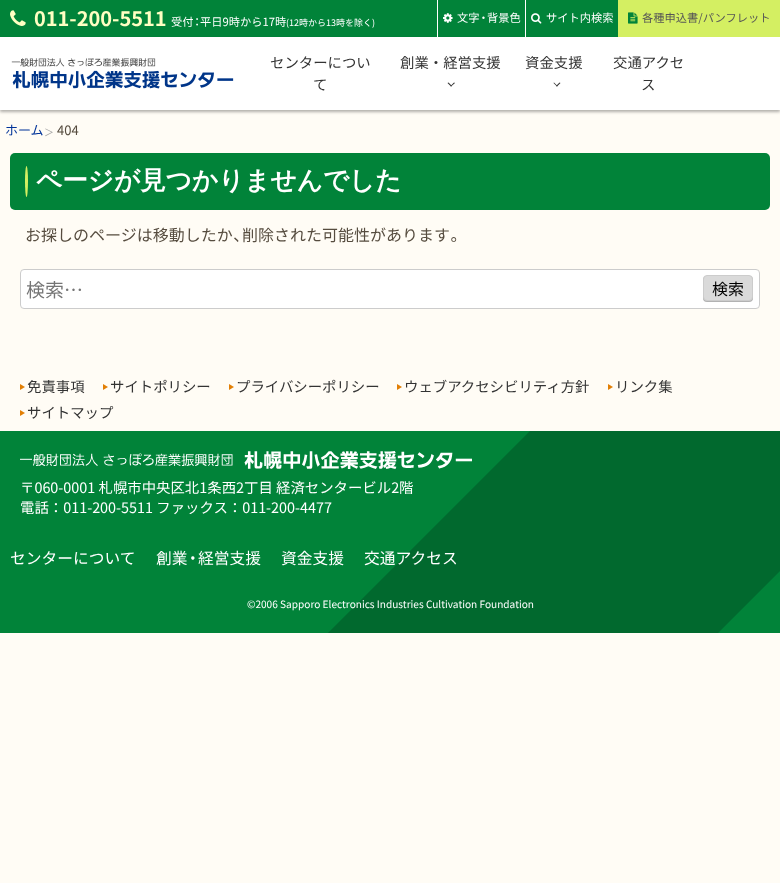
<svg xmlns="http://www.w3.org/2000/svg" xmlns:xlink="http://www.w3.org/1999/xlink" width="780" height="883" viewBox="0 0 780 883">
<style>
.cls-1{font:bold 20px Noto Sans JP;fill:#ffffc3}
.cls-2{font:11.25px Noto Sans JP;fill:#ffffff}
.cls-3{font:11.25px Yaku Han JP;fill:#ffffff}
.cls-4{font:9px Noto Sans JP;fill:#ffffff}
.cls-5{font:11.25px Noto Sans JP;fill:#565656}
.cls-6{font:14.4px Noto Sans JP;fill:#333333}
.cls-7{font:13px Noto Sans JP;fill:#003399}
.cls-8{font:10px Noto Sans JP;fill:#a2a2a2}
.cls-9{font:13px Noto Sans JP;fill:#564c3f}
.cls-10{font:bold 25.6px WenQuanYi Zen Hei;fill:#ffffff}
.cls-11{font:16px Noto Sans JP;fill:#564c3f}
.cls-12{font:16px Yaku Han JP;fill:#564c3f}
.cls-13{font:19px Noto Sans JP;fill:#757575}
.cls-14{font:16px Noto Sans JP;fill:#000000}
.cls-15{font:14.4px Noto Sans JP;fill:#ffffff}
.cls-16{font:15.75px Noto Sans JP;fill:#ffffff}
.cls-17{font:15.75px Yaku Han JP;fill:#ffffff}
.cls-18{font:10.1px Noto Sans JP;fill:#ffffff}
</style>
<rect width="100%" height="100%" fill="#fffcf5"/>
<rect fill="#018339" x="0" y="0" width="618" height="37"/>
<image xlink:href="image0.png" x="10" y="10" width="16" height="16"/>
<rect fill="#000000" fill-opacity="0.3" filter="blur(1.5px)" x="0" y="39" width="780" height="73"/>
<rect fill="#ffffff" x="437" y="0" width="1" height="37"/>
<image xlink:href="image1.png" x="443" y="13" width="10" height="10"/>
<rect fill="#ffffff" x="525" y="0" width="1" height="37"/>
<image xlink:href="image2.png" x="531" y="13" width="11" height="11"/>
<rect fill="#d4ef62" x="618" y="0" width="162" height="37"/>
<image xlink:href="image3.png" x="628" y="12" width="10" height="12"/>
<rect fill="#ffffff" x="0" y="37" width="780" height="73"/>
<image xlink:href="image4.png" x="11" y="58" width="223" height="31"/>
<path fill="#333333" d="M454 82.5L455 83L451 86.5L450.5 86Z"/>
<path fill="#333333" d="M448.5 82.5L452 86L451 86.5L447.5 83Z"/>
<path fill="#333333" d="M559.5 82.5L560.5 83L557 86.5L556 86Z"/>
<path fill="#333333" d="M554 82.5L557.5 86L557 86.5L553.5 83Z"/>
<rect fill="#018339" x="10" y="153" width="760" height="57" rx="5"/>
<ellipse fill="#d4ef62" cx="26.5" cy="181.5" rx="1.5" ry="15.5"/>
<rect fill="#ffffff" stroke="#cccccc" x="20.5" y="269.5" width="739" height="39" rx="3.5"/>
<rect fill="#000000" fill-opacity="0.3" filter="blur(0.5px)" x="703" y="276" width="50" height="26" rx="4"/>
<rect fill="#dadada" stroke="#cccccc" x="703.5" y="275.5" width="49" height="25" rx="3.5"/>
<path fill="#e27f05" d="M20 390V384L25 387Z"/>
<path fill="#e27f05" d="M103 390V384L108 387Z"/>
<path fill="#e27f05" d="M229 390V384L234 387Z"/>
<path fill="#e27f05" d="M397 390V384L402 387Z"/>
<path fill="#e27f05" d="M608 390V384L613 387Z"/>
<path fill="#e27f05" d="M20 416V410L25 413Z"/>
<rect fill="#018339" x="0" y="431" width="780" height="202"/>
<image xlink:href="image5.png" x="20" y="451" width="452" height="18"/>
<text class="cls-1" x="34" y="26">011-200-5511</text>
<text class="cls-2" x="171" y="26">受付</text>
<text class="cls-3" x="194" y="26">：</text>
<text class="cls-2" x="200" y="26">平日9時から17時</text>
<text class="cls-4" x="286" y="26">(12時から13時を除く)</text>
<text class="cls-2" x="457" y="22">文字</text>
<text class="cls-3" x="480" y="22">・</text>
<text class="cls-2" x="487" y="22">背景色</text>
<text class="cls-2" x="546" y="22">サイト内検索</text>
<text class="cls-5" x="642" y="22">各種申込書/パンフレット</text>
<text class="cls-6" x="270" y="68">センターについ</text>
<text class="cls-6" x="313" y="90">て</text>
<text class="cls-6" x="400" y="68">創業・経営支援</text>
<text class="cls-6" x="525" y="68">資金支援</text>
<text class="cls-6" x="613" y="68">交通アクセ</text>
<text class="cls-6" x="641" y="90">ス</text>
<text class="cls-7" x="5" y="135">ホーム</text>
<text class="cls-8" x="44" y="136">＞</text>
<text class="cls-9" x="57" y="135">404</text>
<text class="cls-10" x="36" y="189">ページが見つかりませんでした</text>
<text class="cls-11" x="25" y="241">お探しのページは移動したか</text>
<text class="cls-12" x="233" y="241">、</text>
<text class="cls-11" x="242" y="241">削除された可能性があります</text>
<text class="cls-12" x="450" y="241">。</text>
<text class="cls-13" x="26" y="297">検索…</text>
<text class="cls-14" x="712" y="295">検索</text>
<text class="cls-6" x="27" y="392">免責事項</text>
<text class="cls-6" x="110" y="392">サイトポリシー</text>
<text class="cls-6" x="236" y="392">プライバシーポリシー</text>
<text class="cls-6" x="404" y="392">ウェブアクセシビリティ方針</text>
<text class="cls-6" x="615" y="392">リンク集</text>
<text class="cls-6" x="27" y="418">サイトマップ</text>
<text class="cls-15"><tspan x="20" y="493">〒060-0001 札幌市中央区北1条西2丁目 経済センタービル2階</tspan><tspan x="20" y="513">電話：011-200-5511 ファックス：011-200-4477</tspan></text>
<path fill="#01692e" d="M530 431H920L718 633H328Z"/>
<text class="cls-16" x="10" y="564">センターについて</text>
<text class="cls-16" x="156" y="564">創業</text>
<text class="cls-17" x="188" y="564">・</text>
<text class="cls-16" x="198" y="564">経営支援</text>
<text class="cls-16" x="281" y="564">資金支援</text>
<text class="cls-16" x="364" y="564">交通アクセス</text>
<text class="cls-18" x="247" y="608">©2006 Sapporo Electronics Industries Cultivation Foundation</text>
</svg>
